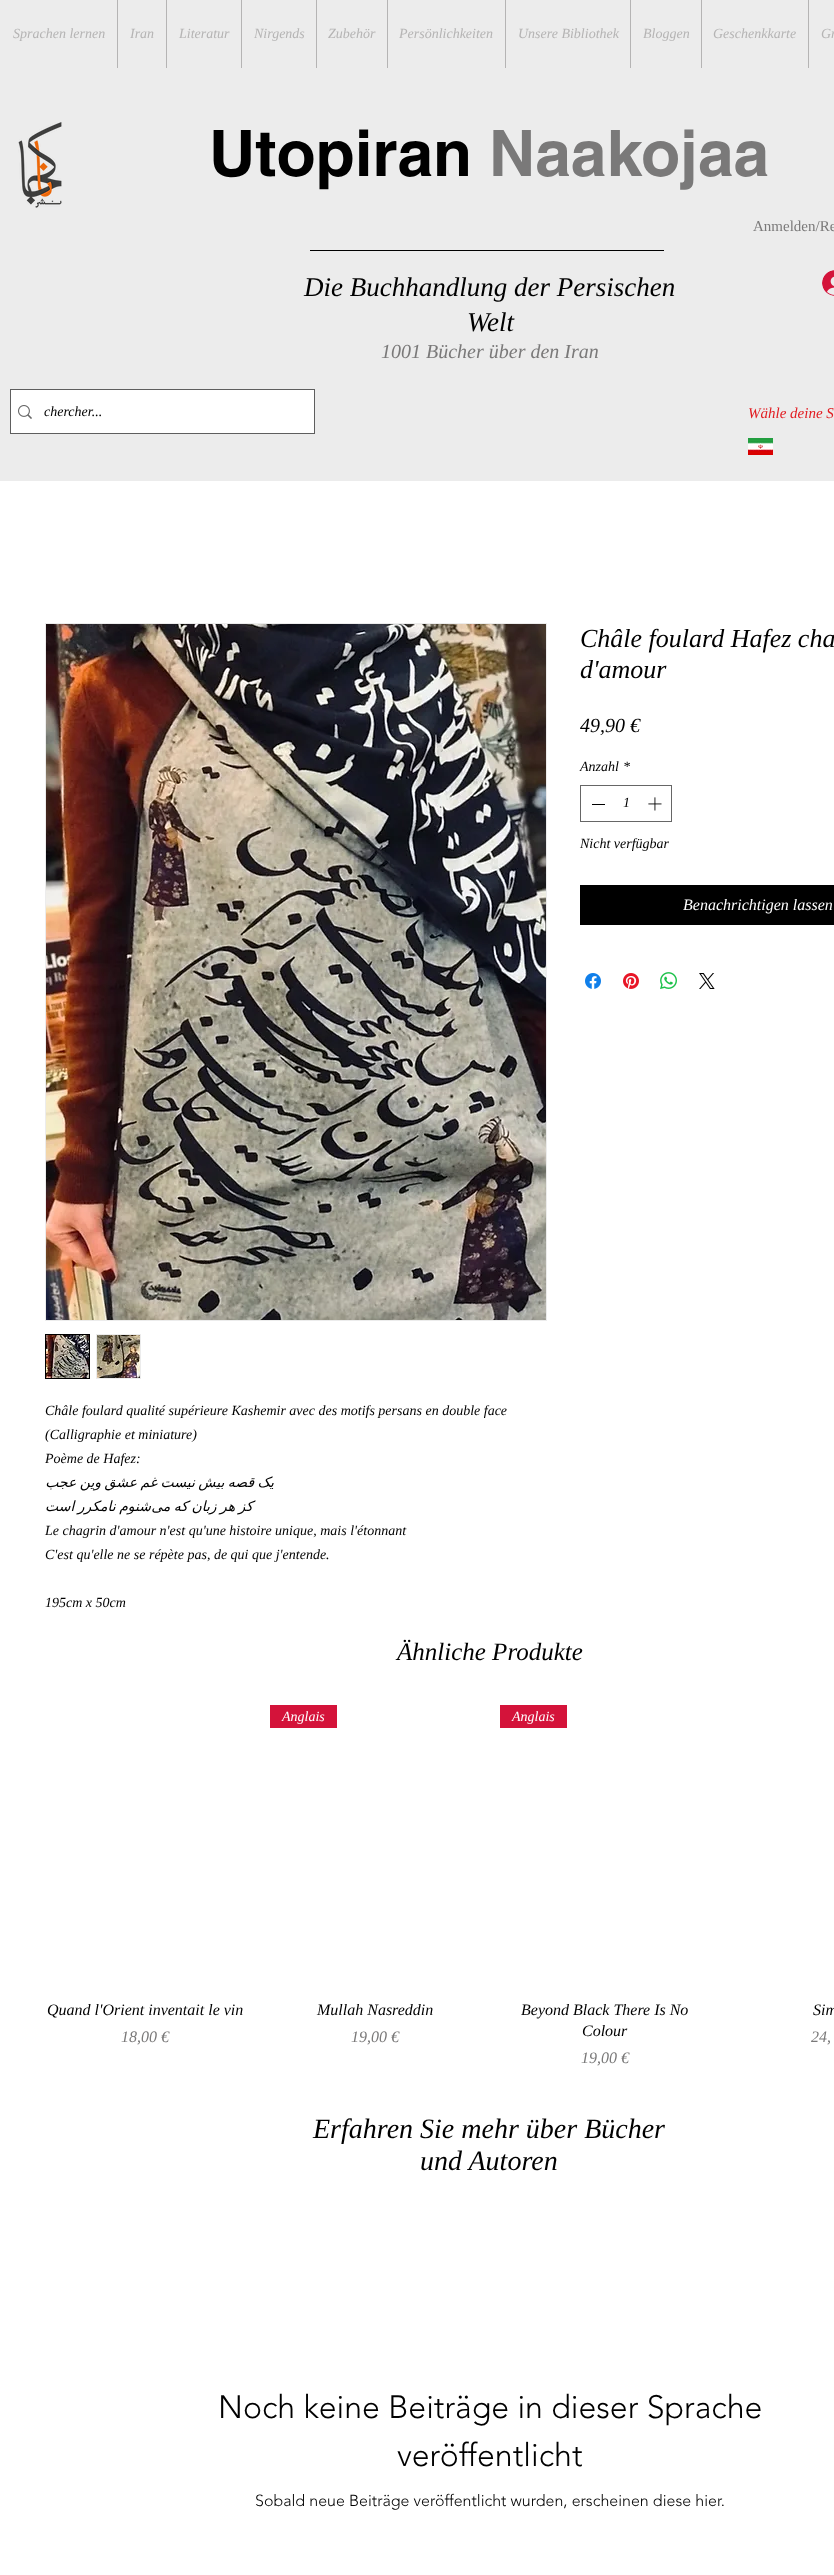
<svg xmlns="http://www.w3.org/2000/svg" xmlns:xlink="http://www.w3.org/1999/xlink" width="834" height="2575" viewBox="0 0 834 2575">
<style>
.cls-1{font:italic 14px Liberation Serif;fill:#b5b4b4}
.cls-2{font:bold 64px helvetica;fill:#000000}
.cls-3{font:bold 64px helvetica;fill:#7a7979}
.cls-4{font:15px Liberation Serif;fill:#7a7979}
.cls-5{font:italic 27px Liberation Serif;fill:#000000}
.cls-6{font:italic 20px Liberation Serif;fill:#7a7979}
.cls-7{font:italic 14px Liberation Serif;fill:#000000}
.cls-8{font:italic 15px Liberation Serif;fill:#e21c21}
.cls-9{font:italic 26px Liberation Serif;fill:#000000}
.cls-10{font:italic 20px Liberation Serif;fill:#000000}
.cls-11{font:italic 16px Liberation Serif;fill:#ffffff}
.cls-12{font:italic 14px DejaVu Sans;direction:rtl;fill:#000000}
.cls-13{font:italic 25px Liberation Serif;fill:#000000}
.cls-14{font:italic 16px Liberation Serif;fill:#000000}
.cls-15{font:italic 16px Liberation Serif;fill:#7a7979}
.cls-16{font:italic 14px Liberation Serif;fill:#ffffff}
.cls-17{font:italic 28px Liberation Serif;fill:#000000}
.cls-18{font:300 32px 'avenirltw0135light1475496';fill:#000000}
.cls-19{font:300 16px 'avenirltw0135light1475496';fill:#000000}
</style>
<rect width="100%" height="100%" fill="#ececec"/>
<rect fill="#b5b4b4" x="117" y="0" width="1" height="68"/>
<rect fill="#b5b4b4" x="166" y="0" width="1" height="68"/>
<rect fill="#b5b4b4" x="241" y="0" width="1" height="68"/>
<rect fill="#b5b4b4" x="316" y="0" width="1" height="68"/>
<rect fill="#b5b4b4" x="387" y="0" width="1" height="68"/>
<rect fill="#b5b4b4" x="505" y="0" width="1" height="68"/>
<rect fill="#b5b4b4" x="630" y="0" width="1" height="68"/>
<rect fill="#b5b4b4" x="701" y="0" width="1" height="68"/>
<rect fill="#b5b4b4" x="808" y="0" width="1" height="68"/>
<image xlink:href="image0.png" x="18" y="122" width="44" height="86"/>
<rect fill="#000000" x="310" y="250" width="354" height="1"/>
<image xlink:href="image1.png" x="822" y="270" width="12" height="26"/>
<rect fill="none" stroke="#5e5e5e" x="10.5" y="389.5" width="304" height="44"/>
<rect fill="#ffffff" x="11" y="390" width="303" height="43"/>
<image xlink:href="image2.png" x="18" y="405" width="14" height="14"/>
<image xlink:href="image3.png" x="748" y="438" width="25" height="17"/>
<rect fill="#ffffff" x="0" y="481" width="834" height="2094"/>
<rect fill="none" stroke="#666666" x="580.5" y="785.5" width="91" height="36"/>
<rect fill="#000000" x="592" y="804" width="13" height="1"/>
<image xlink:href="image4.png" x="648" y="797" width="14" height="14"/>
<rect fill="#000000" x="580" y="885" width="254" height="40"/>
<image xlink:href="image5.png" x="585" y="973" width="16" height="16"/>
<image xlink:href="image6.png" x="623" y="973" width="16" height="16"/>
<image xlink:href="image7.png" x="660" y="972" width="17" height="17"/>
<image xlink:href="image8.png" x="699" y="973" width="16" height="16"/>
<rect fill="none" stroke="#ececec" x="45.5" y="623.5" width="501" height="697"/>
<image xlink:href="image9.png" x="46" y="624" width="500" height="696"/>
<rect fill="none" stroke="#000000" x="45.5" y="1334.5" width="44" height="44"/>
<image xlink:href="image10.png" x="46" y="1335" width="43" height="43"/>
<rect fill="none" stroke="#ececec" x="96.5" y="1334.5" width="44" height="44"/>
<image xlink:href="image11.png" x="97" y="1335" width="43" height="43"/>
<rect fill="#d4133a" x="270" y="1705" width="67" height="23"/>
<rect fill="#d4133a" x="500" y="1705" width="67" height="23"/>
<text class="cls-1" x="13" y="38">Sprachen lernen</text>
<text class="cls-1" x="130" y="38">Iran</text>
<text class="cls-1" x="179" y="38">Literatur</text>
<text class="cls-1" x="254" y="38">Nirgends</text>
<text class="cls-1" x="328" y="38">Zubehör</text>
<text class="cls-1" x="399" y="38">Persönlichkeiten</text>
<text class="cls-1" x="518" y="38">Unsere Bibliothek</text>
<text class="cls-1" x="643" y="38">Bloggen</text>
<text class="cls-1" x="713" y="38">Geschenkkarte</text>
<text class="cls-1" x="821" y="38">Gr</text>
<text class="cls-2" x="209" y="176">Utopiran</text>
<text class="cls-3" x="489" y="176">Naakojaa</text>
<text class="cls-4" x="753" y="231">Anmelden/Re</text>
<text class="cls-5" x="304" y="296">Die Buchhandlung der Persischen</text>
<text class="cls-5" x="467" y="331">Welt</text>
<text class="cls-6" x="381" y="358">1001 Bücher über den Iran</text>
<text class="cls-7" x="44" y="416">chercher...</text>
<text class="cls-8" x="748" y="418">Wähle deine S</text>
<text class="cls-9"><tspan x="580" y="647">Châle foulard Hafez cha</tspan><tspan x="580" y="678">d'amour</tspan></text>
<text class="cls-10" x="580" y="732">49,90 €</text>
<text class="cls-7" x="580" y="771">Anzahl</text>
<text class="cls-7" x="623" y="771">*</text>
<text class="cls-7" x="623" y="807">1</text>
<text class="cls-7" x="580" y="848">Nicht verfügbar</text>
<text class="cls-11" x="683" y="910">Benachrichtigen lassen</text>
<text class="cls-7"><tspan x="45" y="1415">Châle foulard qualité supérieure Kashemir avec des motifs persans en double face</tspan><tspan x="45" y="1439">(Calligraphie et miniature)</tspan><tspan x="45" y="1463">Poème de Hafez:</tspan></text>
<text class="cls-12" x="274" y="1487" word-spacing="-1">یک قصه بیش نیست غم عشق وین عجب</text>
<text class="cls-12" x="151" y="1511" word-spacing="-1">شنوم نامکرر است</text>
<text class="cls-12" x="253" y="1511" word-spacing="-1">کز هر زبان که می</text>
<text class="cls-7"><tspan x="45" y="1535">Le chagrin d'amour n'est qu'une histoire unique, mais l'étonnant</tspan><tspan x="45" y="1559">C'est qu'elle ne se répète pas, de qui que j'entende.</tspan></text>
<text class="cls-7" x="45" y="1607">195cm x 50cm</text>
<text class="cls-13" x="397" y="1660">Ähnliche Produkte</text>
<text class="cls-14" x="47" y="2015">Quand l'Orient inventait le vin</text>
<text class="cls-15" x="121" y="2042">18,00 €</text>
<text class="cls-16" x="282" y="1721">Anglais</text>
<text class="cls-14" x="317" y="2015">Mullah Nasreddin</text>
<text class="cls-15" x="351" y="2042">19,00 €</text>
<text class="cls-16" x="512" y="1721">Anglais</text>
<text class="cls-14" x="521" y="2015">Beyond Black There Is No</text>
<text class="cls-14" x="582" y="2036">Colour</text>
<text class="cls-15" x="581" y="2063">19,00 €</text>
<text class="cls-14" x="813" y="2015">Sim</text>
<text class="cls-15" x="811" y="2042">24,</text>
<text class="cls-17" x="313" y="2138">Erfahren Sie mehr über Bücher</text>
<text class="cls-17" x="420" y="2170">und Autoren</text>
<text class="cls-18" x="218" y="2418">Noch keine Beiträge in dieser Sprache</text>
<text class="cls-18" x="397" y="2466">veröffentlicht</text>
<text class="cls-19" x="255" y="2506">Sobald neue Beiträge veröffentlicht wurden, erscheinen diese hier.</text>
</svg>
